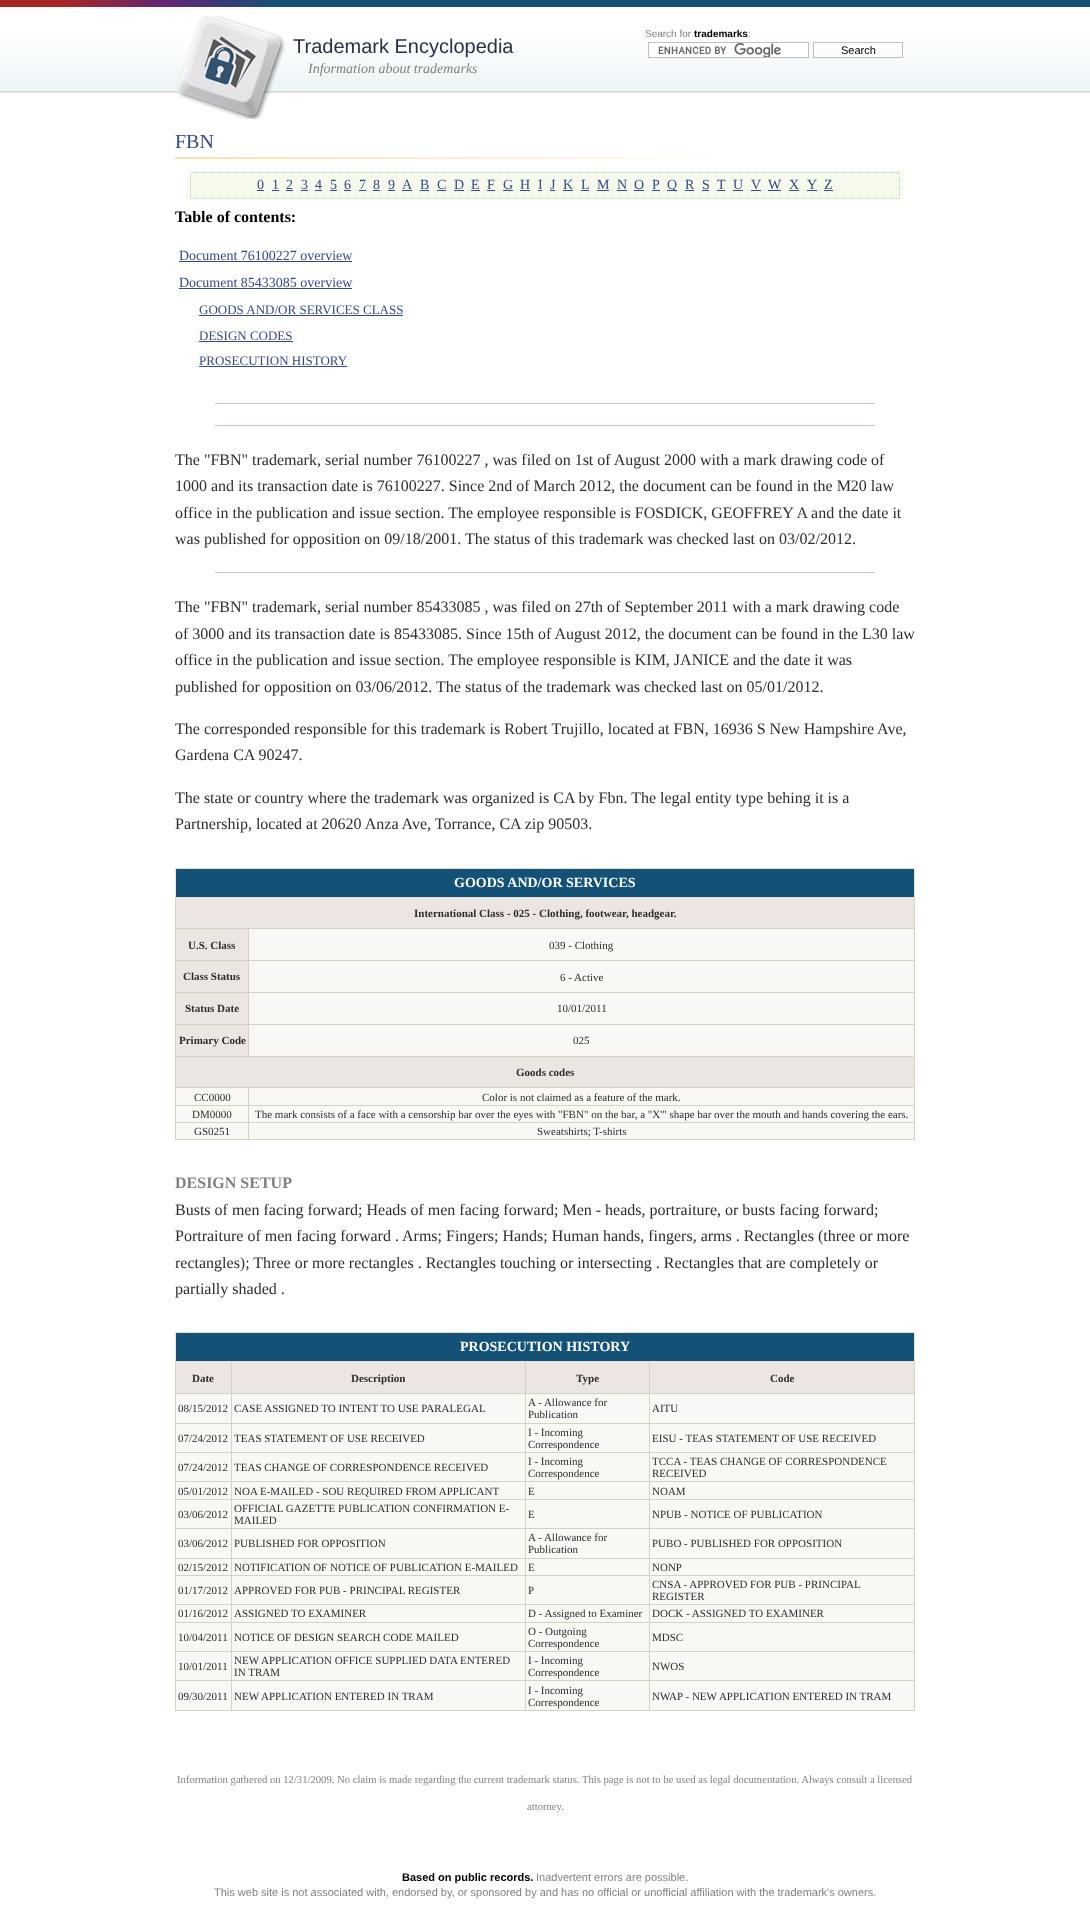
<svg xmlns="http://www.w3.org/2000/svg" xmlns:xlink="http://www.w3.org/1999/xlink" width="1090" height="1906" viewBox="0 0 1090 1906">
<style>
.cls-1{font:20px Liberation Sans;fill:#292f49}
.cls-2{font:italic 14px Liberation Serif;fill:#808080}
.cls-3{font:10px Liberation Sans;fill:#808080}
.cls-4{font:bold 10px Liberation Sans;fill:#000000}
.cls-5{font:11px Liberation Sans;fill:#000000}
.cls-6{font:20px Liberation Serif;fill:#364989}
.cls-7{font:14px Liberation Serif;fill:#364989}
.cls-8{font:bold 16px Liberation Serif;fill:#000000}
.cls-9{font:13px Liberation Serif;fill:#364989}
.cls-10{font:16px Liberation Serif;fill:#2e2c2c}
.cls-11{font:bold 14px Liberation Serif;fill:#ffffff}
.cls-12{font:bold 11px Liberation Serif;fill:#2e2c2c}
.cls-13{font:11px Liberation Serif;fill:#2e2c2c}
.cls-14{font:bold 16px Liberation Serif;fill:#808080}
.cls-15{font:10.67px Liberation Serif;fill:#808080}
.cls-16{font:bold 11px Liberation Sans;fill:#000000}
.cls-17{font:11px Liberation Sans;fill:#808080}
</style>
<rect width="100%" height="100%" fill="#ffffff"/>
<image xlink:href="image0.png" x="0" y="8" width="1090" height="86"/>
<rect fill="#135176" x="275" y="0" width="815" height="7"/>
<image xlink:href="image1.png" x="0" y="0" width="275" height="7"/>
<image xlink:href="image2.png" x="165" y="8" width="760" height="86"/>
<image xlink:href="image3.png" x="177" y="16" width="109" height="103"/>
<rect fill="#ffffff" x="649" y="43" width="159" height="14"/>
<image xlink:href="image4.png" x="658" y="43" width="123" height="14"/>
<rect fill="none" stroke="#bbbdcd" x="648.5" y="42.5" width="160" height="15"/>
<rect fill="#fcfcfa" stroke="#bbbdcd" x="813.5" y="42.5" width="89" height="15"/>
<image xlink:href="image5.png" x="175" y="157" width="540" height="2"/>
<rect fill="#f5faec" x="190" y="172" width="710" height="27"/>
<path fill="none" stroke="#b7dba8" stroke-dasharray="1 1" d="M190 172.5H900"/>
<path fill="none" stroke="#b7dba8" stroke-dasharray="1 1" d="M899.5 172V199"/>
<path fill="none" stroke="#b7dba8" stroke-dasharray="1 1" d="M190 198.5H900"/>
<path fill="none" stroke="#b7dba8" stroke-dasharray="1 1" d="M190.5 172V199"/>
<rect fill="#364989" x="257" y="190" width="7" height="1"/>
<rect fill="#364989" x="272" y="190" width="7" height="1"/>
<rect fill="#364989" x="286" y="190" width="7" height="1"/>
<rect fill="#364989" x="301" y="190" width="7" height="1"/>
<rect fill="#364989" x="315" y="190" width="7" height="1"/>
<rect fill="#364989" x="330" y="190" width="7" height="1"/>
<rect fill="#364989" x="344" y="190" width="7" height="1"/>
<rect fill="#364989" x="359" y="190" width="7" height="1"/>
<rect fill="#364989" x="373" y="190" width="7" height="1"/>
<rect fill="#364989" x="388" y="190" width="7" height="1"/>
<rect fill="#364989" x="402" y="190" width="10" height="1"/>
<rect fill="#364989" x="420" y="190" width="9" height="1"/>
<rect fill="#364989" x="437" y="190" width="9" height="1"/>
<rect fill="#364989" x="454" y="190" width="10" height="1"/>
<rect fill="#364989" x="471" y="190" width="9" height="1"/>
<rect fill="#364989" x="487" y="190" width="8" height="1"/>
<rect fill="#364989" x="503" y="190" width="10" height="1"/>
<rect fill="#364989" x="520" y="190" width="10" height="1"/>
<rect fill="#364989" x="538" y="190" width="4" height="1"/>
<rect fill="#364989" x="550" y="190" width="5" height="1"/>
<rect fill="#364989" x="563" y="190" width="10" height="1"/>
<rect fill="#364989" x="581" y="190" width="8" height="1"/>
<rect fill="#364989" x="597" y="190" width="12" height="1"/>
<rect fill="#364989" x="617" y="190" width="10" height="1"/>
<rect fill="#364989" x="634" y="190" width="10" height="1"/>
<rect fill="#364989" x="652" y="190" width="8" height="1"/>
<rect fill="#364989" x="667" y="190" width="10" height="1"/>
<rect fill="#364989" x="685" y="190" width="9" height="1"/>
<rect fill="#364989" x="702" y="190" width="7" height="1"/>
<rect fill="#364989" x="717" y="190" width="8" height="1"/>
<rect fill="#364989" x="733" y="190" width="10" height="1"/>
<rect fill="#364989" x="751" y="190" width="10" height="1"/>
<rect fill="#364989" x="768" y="190" width="13" height="1"/>
<rect fill="#364989" x="789" y="190" width="10" height="1"/>
<rect fill="#364989" x="807" y="190" width="10" height="1"/>
<rect fill="#364989" x="824" y="190" width="9" height="1"/>
<rect fill="#364989" x="179" y="261" width="173" height="1"/>
<rect fill="#364989" x="179" y="288" width="173" height="1"/>
<rect fill="#364989" x="199" y="315" width="204" height="1"/>
<rect fill="#364989" x="199" y="341" width="94" height="1"/>
<rect fill="#364989" x="199" y="366" width="148" height="1"/>
<rect fill="#c4c3d7" x="215" y="403" width="660" height="1"/>
<rect fill="#c4c3d7" x="215" y="425" width="660" height="1"/>
<rect fill="#c4c3d7" x="215" y="572" width="660" height="1"/>
<rect fill="#faf8f5" x="176" y="929" width="738" height="210"/>
<rect fill="#135176" x="176" y="869" width="738" height="28"/>
<rect fill="#e7e4dc" x="175" y="868" width="740" height="1"/>
<rect fill="#d8d1c1" x="248" y="928" width="667" height="1"/>
<rect fill="#d8d1c1" x="248" y="960" width="667" height="1"/>
<rect fill="#d8d1c1" x="248" y="992" width="667" height="1"/>
<rect fill="#d8d1c1" x="248" y="1024" width="667" height="1"/>
<rect fill="#d8d1c1" x="175" y="1056" width="740" height="1"/>
<rect fill="#d8d1c1" x="248" y="1087" width="667" height="1"/>
<rect fill="#d8d1c1" x="248" y="1105" width="667" height="1"/>
<rect fill="#d8d1c1" x="248" y="1122" width="667" height="1"/>
<rect fill="#d8d1c1" x="914" y="1122" width="1" height="18"/>
<rect fill="#d8d1c1" x="914" y="1105" width="1" height="18"/>
<rect fill="#d8d1c1" x="914" y="1087" width="1" height="19"/>
<rect fill="#d8d1c1" x="914" y="1056" width="1" height="32"/>
<rect fill="#d8d1c1" x="914" y="1024" width="1" height="33"/>
<rect fill="#d8d1c1" x="914" y="992" width="1" height="33"/>
<rect fill="#d8d1c1" x="914" y="960" width="1" height="33"/>
<rect fill="#d8d1c1" x="914" y="897" width="1" height="64"/>
<rect fill="#e7e4dc" x="914" y="868" width="1" height="30"/>
<rect fill="#d8d1c1" x="248" y="1024" width="1" height="33"/>
<rect fill="#d8d1c1" x="175" y="1024" width="74" height="1"/>
<rect fill="#d8d1c1" x="248" y="992" width="1" height="33"/>
<rect fill="#d8d1c1" x="175" y="992" width="74" height="1"/>
<rect fill="#d8d1c1" x="248" y="960" width="1" height="33"/>
<rect fill="#d8d1c1" x="175" y="960" width="74" height="1"/>
<rect fill="#d8d1c1" x="248" y="928" width="1" height="33"/>
<rect fill="#d8d1c1" x="175" y="928" width="74" height="1"/>
<rect fill="#d8d1c1" x="248" y="1139" width="667" height="1"/>
<rect fill="#d8d1c1" x="248" y="1122" width="1" height="18"/>
<rect fill="#d8d1c1" x="175" y="1122" width="74" height="1"/>
<rect fill="#d8d1c1" x="248" y="1105" width="1" height="18"/>
<rect fill="#d8d1c1" x="175" y="1105" width="74" height="1"/>
<rect fill="#d8d1c1" x="248" y="1087" width="1" height="19"/>
<rect fill="#d8d1c1" x="175" y="1087" width="74" height="1"/>
<rect fill="#d8d1c1" x="175" y="1139" width="74" height="1"/>
<rect fill="#d8d1c1" x="175" y="1122" width="1" height="18"/>
<rect fill="#d8d1c1" x="175" y="1105" width="1" height="18"/>
<rect fill="#d8d1c1" x="175" y="1087" width="1" height="19"/>
<rect fill="#d8d1c1" x="175" y="1056" width="1" height="32"/>
<rect fill="#d8d1c1" x="175" y="1024" width="1" height="33"/>
<rect fill="#d8d1c1" x="175" y="992" width="1" height="33"/>
<rect fill="#d8d1c1" x="175" y="960" width="1" height="33"/>
<rect fill="#d8d1c1" x="175" y="897" width="1" height="64"/>
<rect fill="#e7e4dc" x="175" y="897" width="740" height="1"/>
<rect fill="#e7e4dc" x="175" y="868" width="1" height="30"/>
<rect fill="#ebe6e1" x="176" y="898" width="738" height="30"/>
<rect fill="#ebe6e1" x="176" y="929" width="72" height="31"/>
<rect fill="#ebe6e1" x="176" y="961" width="72" height="31"/>
<rect fill="#ebe6e1" x="176" y="993" width="72" height="31"/>
<rect fill="#ebe6e1" x="176" y="1025" width="72" height="31"/>
<rect fill="#ebe6e1" x="176" y="1057" width="738" height="30"/>
<rect fill="#faf8f5" x="176" y="1394" width="738" height="316"/>
<rect fill="#135176" x="176" y="1333" width="738" height="28"/>
<rect fill="#e7e4dc" x="175" y="1332" width="740" height="1"/>
<rect fill="#d8d1c1" x="649" y="1393" width="266" height="1"/>
<rect fill="#d8d1c1" x="649" y="1423" width="266" height="1"/>
<rect fill="#d8d1c1" x="649" y="1452" width="266" height="1"/>
<rect fill="#d8d1c1" x="649" y="1481" width="266" height="1"/>
<rect fill="#d8d1c1" x="649" y="1499" width="266" height="1"/>
<rect fill="#d8d1c1" x="649" y="1528" width="266" height="1"/>
<rect fill="#d8d1c1" x="649" y="1558" width="266" height="1"/>
<rect fill="#d8d1c1" x="649" y="1575" width="266" height="1"/>
<rect fill="#d8d1c1" x="649" y="1604" width="266" height="1"/>
<rect fill="#d8d1c1" x="649" y="1622" width="266" height="1"/>
<rect fill="#d8d1c1" x="649" y="1651" width="266" height="1"/>
<rect fill="#d8d1c1" x="649" y="1680" width="266" height="1"/>
<rect fill="#d8d1c1" x="914" y="1680" width="1" height="31"/>
<rect fill="#d8d1c1" x="914" y="1651" width="1" height="30"/>
<rect fill="#d8d1c1" x="914" y="1622" width="1" height="30"/>
<rect fill="#d8d1c1" x="914" y="1604" width="1" height="19"/>
<rect fill="#d8d1c1" x="914" y="1575" width="1" height="30"/>
<rect fill="#d8d1c1" x="914" y="1558" width="1" height="18"/>
<rect fill="#d8d1c1" x="914" y="1528" width="1" height="31"/>
<rect fill="#d8d1c1" x="914" y="1499" width="1" height="30"/>
<rect fill="#d8d1c1" x="914" y="1481" width="1" height="19"/>
<rect fill="#d8d1c1" x="914" y="1452" width="1" height="30"/>
<rect fill="#d8d1c1" x="914" y="1423" width="1" height="30"/>
<rect fill="#d8d1c1" x="914" y="1361" width="1" height="63"/>
<rect fill="#e7e4dc" x="914" y="1332" width="1" height="30"/>
<rect fill="#d8d1c1" x="649" y="1710" width="266" height="1"/>
<rect fill="#d8d1c1" x="649" y="1680" width="1" height="31"/>
<rect fill="#d8d1c1" x="525" y="1680" width="125" height="1"/>
<rect fill="#d8d1c1" x="649" y="1651" width="1" height="30"/>
<rect fill="#d8d1c1" x="525" y="1651" width="125" height="1"/>
<rect fill="#d8d1c1" x="649" y="1622" width="1" height="30"/>
<rect fill="#d8d1c1" x="525" y="1622" width="125" height="1"/>
<rect fill="#d8d1c1" x="649" y="1604" width="1" height="19"/>
<rect fill="#d8d1c1" x="525" y="1604" width="125" height="1"/>
<rect fill="#d8d1c1" x="649" y="1575" width="1" height="30"/>
<rect fill="#d8d1c1" x="525" y="1575" width="125" height="1"/>
<rect fill="#d8d1c1" x="649" y="1558" width="1" height="18"/>
<rect fill="#d8d1c1" x="525" y="1558" width="125" height="1"/>
<rect fill="#d8d1c1" x="649" y="1528" width="1" height="31"/>
<rect fill="#d8d1c1" x="525" y="1528" width="125" height="1"/>
<rect fill="#d8d1c1" x="649" y="1499" width="1" height="30"/>
<rect fill="#d8d1c1" x="525" y="1499" width="125" height="1"/>
<rect fill="#d8d1c1" x="649" y="1481" width="1" height="19"/>
<rect fill="#d8d1c1" x="525" y="1481" width="125" height="1"/>
<rect fill="#d8d1c1" x="649" y="1452" width="1" height="30"/>
<rect fill="#d8d1c1" x="525" y="1452" width="125" height="1"/>
<rect fill="#d8d1c1" x="649" y="1423" width="1" height="30"/>
<rect fill="#d8d1c1" x="525" y="1423" width="125" height="1"/>
<rect fill="#d8d1c1" x="649" y="1393" width="1" height="31"/>
<rect fill="#d8d1c1" x="525" y="1393" width="125" height="1"/>
<rect fill="#d8d1c1" x="525" y="1710" width="125" height="1"/>
<rect fill="#d8d1c1" x="525" y="1680" width="1" height="31"/>
<rect fill="#d8d1c1" x="231" y="1680" width="295" height="1"/>
<rect fill="#d8d1c1" x="525" y="1651" width="1" height="30"/>
<rect fill="#d8d1c1" x="231" y="1651" width="295" height="1"/>
<rect fill="#d8d1c1" x="525" y="1622" width="1" height="30"/>
<rect fill="#d8d1c1" x="231" y="1622" width="295" height="1"/>
<rect fill="#d8d1c1" x="525" y="1604" width="1" height="19"/>
<rect fill="#d8d1c1" x="231" y="1604" width="295" height="1"/>
<rect fill="#d8d1c1" x="525" y="1575" width="1" height="30"/>
<rect fill="#d8d1c1" x="231" y="1575" width="295" height="1"/>
<rect fill="#d8d1c1" x="525" y="1558" width="1" height="18"/>
<rect fill="#d8d1c1" x="231" y="1558" width="295" height="1"/>
<rect fill="#d8d1c1" x="525" y="1528" width="1" height="31"/>
<rect fill="#d8d1c1" x="231" y="1528" width="295" height="1"/>
<rect fill="#d8d1c1" x="525" y="1499" width="1" height="30"/>
<rect fill="#d8d1c1" x="231" y="1499" width="295" height="1"/>
<rect fill="#d8d1c1" x="525" y="1481" width="1" height="19"/>
<rect fill="#d8d1c1" x="231" y="1481" width="295" height="1"/>
<rect fill="#d8d1c1" x="525" y="1452" width="1" height="30"/>
<rect fill="#d8d1c1" x="231" y="1452" width="295" height="1"/>
<rect fill="#d8d1c1" x="525" y="1423" width="1" height="30"/>
<rect fill="#d8d1c1" x="231" y="1423" width="295" height="1"/>
<rect fill="#d8d1c1" x="525" y="1393" width="1" height="31"/>
<rect fill="#d8d1c1" x="231" y="1393" width="295" height="1"/>
<rect fill="#d8d1c1" x="231" y="1710" width="295" height="1"/>
<rect fill="#d8d1c1" x="231" y="1680" width="1" height="31"/>
<rect fill="#d8d1c1" x="175" y="1680" width="57" height="1"/>
<rect fill="#d8d1c1" x="231" y="1651" width="1" height="30"/>
<rect fill="#d8d1c1" x="175" y="1651" width="57" height="1"/>
<rect fill="#d8d1c1" x="231" y="1622" width="1" height="30"/>
<rect fill="#d8d1c1" x="175" y="1622" width="57" height="1"/>
<rect fill="#d8d1c1" x="231" y="1604" width="1" height="19"/>
<rect fill="#d8d1c1" x="175" y="1604" width="57" height="1"/>
<rect fill="#d8d1c1" x="231" y="1575" width="1" height="30"/>
<rect fill="#d8d1c1" x="175" y="1575" width="57" height="1"/>
<rect fill="#d8d1c1" x="231" y="1558" width="1" height="18"/>
<rect fill="#d8d1c1" x="175" y="1558" width="57" height="1"/>
<rect fill="#d8d1c1" x="231" y="1528" width="1" height="31"/>
<rect fill="#d8d1c1" x="175" y="1528" width="57" height="1"/>
<rect fill="#d8d1c1" x="231" y="1499" width="1" height="30"/>
<rect fill="#d8d1c1" x="175" y="1499" width="57" height="1"/>
<rect fill="#d8d1c1" x="231" y="1481" width="1" height="19"/>
<rect fill="#d8d1c1" x="175" y="1481" width="57" height="1"/>
<rect fill="#d8d1c1" x="231" y="1452" width="1" height="30"/>
<rect fill="#d8d1c1" x="175" y="1452" width="57" height="1"/>
<rect fill="#d8d1c1" x="231" y="1423" width="1" height="30"/>
<rect fill="#d8d1c1" x="175" y="1423" width="57" height="1"/>
<rect fill="#d8d1c1" x="231" y="1393" width="1" height="31"/>
<rect fill="#d8d1c1" x="175" y="1393" width="57" height="1"/>
<rect fill="#d8d1c1" x="231" y="1361" width="1" height="33"/>
<rect fill="#d8d1c1" x="525" y="1361" width="1" height="33"/>
<rect fill="#d8d1c1" x="649" y="1361" width="1" height="33"/>
<rect fill="#d8d1c1" x="175" y="1710" width="57" height="1"/>
<rect fill="#d8d1c1" x="175" y="1680" width="1" height="31"/>
<rect fill="#d8d1c1" x="175" y="1651" width="1" height="30"/>
<rect fill="#d8d1c1" x="175" y="1622" width="1" height="30"/>
<rect fill="#d8d1c1" x="175" y="1604" width="1" height="19"/>
<rect fill="#d8d1c1" x="175" y="1575" width="1" height="30"/>
<rect fill="#d8d1c1" x="175" y="1558" width="1" height="18"/>
<rect fill="#d8d1c1" x="175" y="1528" width="1" height="31"/>
<rect fill="#d8d1c1" x="175" y="1499" width="1" height="30"/>
<rect fill="#d8d1c1" x="175" y="1481" width="1" height="19"/>
<rect fill="#d8d1c1" x="175" y="1452" width="1" height="30"/>
<rect fill="#d8d1c1" x="175" y="1423" width="1" height="30"/>
<rect fill="#d8d1c1" x="175" y="1361" width="1" height="63"/>
<rect fill="#e7e4dc" x="175" y="1361" width="740" height="1"/>
<rect fill="#e7e4dc" x="175" y="1332" width="1" height="30"/>
<rect fill="#ebe6e1" x="176" y="1362" width="55" height="31"/>
<rect fill="#ebe6e1" x="232" y="1362" width="293" height="31"/>
<rect fill="#ebe6e1" x="526" y="1362" width="123" height="31"/>
<rect fill="#ebe6e1" x="650" y="1362" width="264" height="31"/>
<text class="cls-1" x="293" y="53">Trademark Encyclopedia</text>
<text class="cls-2" x="308" y="73">Information about trademarks</text>
<text class="cls-3" x="645" y="37">Search for</text>
<text class="cls-4" x="694" y="37">trademarks</text>
<text class="cls-3" x="748" y="37">:</text>
<text class="cls-5" x="841" y="54">Search</text>
<text class="cls-6" x="175" y="148">FBN</text>
<text class="cls-7" x="257" y="189">0</text>
<text class="cls-7" x="272" y="189">1</text>
<text class="cls-7" x="286" y="189">2</text>
<text class="cls-7" x="301" y="189">3</text>
<text class="cls-7" x="315" y="189">4</text>
<text class="cls-7" x="330" y="189">5</text>
<text class="cls-7" x="344" y="189">6</text>
<text class="cls-7" x="359" y="189">7</text>
<text class="cls-7" x="373" y="189">8</text>
<text class="cls-7" x="388" y="189">9</text>
<text class="cls-7" x="402" y="189">A</text>
<text class="cls-7" x="420" y="189">B</text>
<text class="cls-7" x="437" y="189">C</text>
<text class="cls-7" x="454" y="189">D</text>
<text class="cls-7" x="471" y="189">E</text>
<text class="cls-7" x="487" y="189">F</text>
<text class="cls-7" x="503" y="189">G</text>
<text class="cls-7" x="520" y="189">H</text>
<text class="cls-7" x="538" y="189">I</text>
<text class="cls-7" x="550" y="189">J</text>
<text class="cls-7" x="563" y="189">K</text>
<text class="cls-7" x="581" y="189">L</text>
<text class="cls-7" x="597" y="189">M</text>
<text class="cls-7" x="617" y="189">N</text>
<text class="cls-7" x="634" y="189">O</text>
<text class="cls-7" x="652" y="189">P</text>
<text class="cls-7" x="667" y="189">Q</text>
<text class="cls-7" x="685" y="189">R</text>
<text class="cls-7" x="702" y="189">S</text>
<text class="cls-7" x="717" y="189">T</text>
<text class="cls-7" x="733" y="189">U</text>
<text class="cls-7" x="751" y="189">V</text>
<text class="cls-7" x="768" y="189">W</text>
<text class="cls-7" x="789" y="189">X</text>
<text class="cls-7" x="807" y="189">Y</text>
<text class="cls-7" x="824" y="189">Z</text>
<text class="cls-8" x="175" y="222">Table of contents:</text>
<text class="cls-7"><tspan x="179" y="260">Document 76100227 overview</tspan><tspan x="179" y="287">Document 85433085 overview</tspan></text>
<text class="cls-9" x="199" y="314">GOODS AND/OR SERVICES CLASS</text>
<text class="cls-9"><tspan x="199" y="340">DESIGN CODES</tspan><tspan x="199" y="365">PROSECUTION HISTORY</tspan></text>
<text class="cls-10"><tspan x="175" y="465">The "FBN" trademark, serial number 76100227 , was filed on 1st of August 2000 with a mark drawing code of</tspan><tspan x="175" y="491">1000 and its transaction date is 76100227. Since 2nd of March 2012, the document can be found in the M20 law</tspan><tspan x="175" y="518">office in the publication and issue section. The employee responsible is FOSDICK, GEOFFREY A and the date it</tspan><tspan x="175" y="544">was published for opposition on 09/18/2001. The status of this trademark was checked last on 03/02/2012.</tspan></text>
<text class="cls-10"><tspan x="175" y="612">The "FBN" trademark, serial number 85433085 , was filed on 27th of September 2011 with a mark drawing code</tspan><tspan x="175" y="639">of 3000 and its transaction date is 85433085. Since 15th of August 2012, the document can be found in the L30 law</tspan><tspan x="175" y="665">office in the publication and issue section. The employee responsible is KIM, JANICE and the date it was</tspan><tspan x="175" y="692">published for opposition on 03/06/2012. The status of the trademark was checked last on 05/01/2012.</tspan></text>
<text class="cls-10"><tspan x="175" y="734">The corresponded responsible for this trademark is Robert Trujillo, located at FBN, 16936 S New Hampshire Ave,</tspan><tspan x="175" y="760">Gardena CA 90247.</tspan></text>
<text class="cls-10"><tspan x="175" y="803">The state or country where the trademark was organized is CA by Fbn. The legal entity type behing it is a</tspan><tspan x="175" y="829">Partnership, located at 20620 Anza Ave, Torrance, CA zip 90503.</tspan></text>
<text class="cls-11" x="454" y="887">GOODS AND/OR SERVICES</text>
<text class="cls-12" x="414" y="917">International Class - 025 - Clothing, footwear, headgear.</text>
<text class="cls-12" x="188" y="949">U.S. Class</text>
<text class="cls-13" x="549" y="949">039 - Clothing</text>
<text class="cls-12" x="183" y="980">Class Status</text>
<text class="cls-13" x="560" y="981">6 - Active</text>
<text class="cls-12" x="185" y="1012">Status Date</text>
<text class="cls-13" x="557" y="1012">10/01/2011</text>
<text class="cls-12" x="179" y="1044">Primary Code</text>
<text class="cls-13" x="573" y="1044">025</text>
<text class="cls-12" x="516" y="1076">Goods codes</text>
<text class="cls-13" x="194" y="1101">CC0000</text>
<text class="cls-13" x="482" y="1101">Color is not claimed as a feature of the mark.</text>
<text class="cls-13" x="192" y="1118">DM0000</text>
<text class="cls-13" x="255" y="1118">The mark consists of a face with a censorship bar over the eyes with "FBN" on the bar, a "X'" shape bar over the mouth and hands covering the ears.</text>
<text class="cls-13" x="194" y="1135">GS0251</text>
<text class="cls-13" x="537" y="1135">Sweatshirts; T-shirts</text>
<text class="cls-14" x="175" y="1188">DESIGN SETUP</text>
<text class="cls-10"><tspan x="175" y="1215">Busts of men facing forward; Heads of men facing forward; Men - heads, portraiture, or busts facing forward;</tspan><tspan x="175" y="1241">Portraiture of men facing forward .</tspan></text>
<text class="cls-10" x="402" y="1241">Arms; Fingers; Hands; Human hands, fingers, arms . Rectangles (three or more</text>
<text class="cls-10"><tspan x="175" y="1268">rectangles); Three or more rectangles . Rectangles touching or intersecting . Rectangles that are completely or</tspan><tspan x="175" y="1294">partially shaded .</tspan></text>
<text class="cls-11" x="460" y="1351">PROSECUTION HISTORY</text>
<text class="cls-12" x="192" y="1382">Date</text>
<text class="cls-12" x="351" y="1382">Description</text>
<text class="cls-12" x="576" y="1382">Type</text>
<text class="cls-12" x="770" y="1382">Code</text>
<text class="cls-13" x="178" y="1412">08/15/2012</text>
<text class="cls-13" x="234" y="1412">CASE ASSIGNED TO INTENT TO USE PARALEGAL</text>
<text class="cls-13"><tspan x="528" y="1406">A - Allowance for</tspan><tspan x="528" y="1418">Publication</tspan></text>
<text class="cls-13" x="652" y="1412">AITU</text>
<text class="cls-13" x="178" y="1442">07/24/2012</text>
<text class="cls-13" x="234" y="1442">TEAS STATEMENT OF USE RECEIVED</text>
<text class="cls-13"><tspan x="528" y="1436">I - Incoming</tspan><tspan x="528" y="1448">Correspondence</tspan></text>
<text class="cls-13" x="652" y="1442">EISU - TEAS STATEMENT OF USE RECEIVED</text>
<text class="cls-13" x="178" y="1471">07/24/2012</text>
<text class="cls-13" x="234" y="1471">TEAS CHANGE OF CORRESPONDENCE RECEIVED</text>
<text class="cls-13"><tspan x="528" y="1465">I - Incoming</tspan><tspan x="528" y="1477">Correspondence</tspan></text>
<text class="cls-13"><tspan x="652" y="1465">TCCA - TEAS CHANGE OF CORRESPONDENCE</tspan><tspan x="652" y="1477">RECEIVED</tspan></text>
<text class="cls-13" x="178" y="1495">05/01/2012</text>
<text class="cls-13" x="234" y="1495">NOA E-MAILED - SOU REQUIRED FROM APPLICANT</text>
<text class="cls-13" x="528" y="1495">E</text>
<text class="cls-13" x="652" y="1495">NOAM</text>
<text class="cls-13" x="178" y="1518">03/06/2012</text>
<text class="cls-13"><tspan x="234" y="1512">OFFICIAL GAZETTE PUBLICATION CONFIRMATION E-</tspan><tspan x="234" y="1524">MAILED</tspan></text>
<text class="cls-13" x="528" y="1518">E</text>
<text class="cls-13" x="652" y="1518">NPUB - NOTICE OF PUBLICATION</text>
<text class="cls-13" x="178" y="1547">03/06/2012</text>
<text class="cls-13" x="234" y="1547">PUBLISHED FOR OPPOSITION</text>
<text class="cls-13"><tspan x="528" y="1541">A - Allowance for</tspan><tspan x="528" y="1553">Publication</tspan></text>
<text class="cls-13" x="652" y="1547">PUBO - PUBLISHED FOR OPPOSITION</text>
<text class="cls-13" x="178" y="1571">02/15/2012</text>
<text class="cls-13" x="234" y="1571">NOTIFICATION OF NOTICE OF PUBLICATION E-MAILED</text>
<text class="cls-13" x="528" y="1571">E</text>
<text class="cls-13" x="652" y="1571">NONP</text>
<text class="cls-13" x="178" y="1594">01/17/2012</text>
<text class="cls-13" x="234" y="1594">APPROVED FOR PUB - PRINCIPAL REGISTER</text>
<text class="cls-13" x="528" y="1594">P</text>
<text class="cls-13"><tspan x="652" y="1588">CNSA - APPROVED FOR PUB - PRINCIPAL</tspan><tspan x="652" y="1600">REGISTER</tspan></text>
<text class="cls-13" x="178" y="1617">01/16/2012</text>
<text class="cls-13" x="234" y="1617">ASSIGNED TO EXAMINER</text>
<text class="cls-13" x="528" y="1617">D - Assigned to Examiner</text>
<text class="cls-13" x="652" y="1617">DOCK - ASSIGNED TO EXAMINER</text>
<text class="cls-13" x="178" y="1641">10/04/2011</text>
<text class="cls-13" x="234" y="1641">NOTICE OF DESIGN SEARCH CODE MAILED</text>
<text class="cls-13"><tspan x="528" y="1635">O - Outgoing</tspan><tspan x="528" y="1647">Correspondence</tspan></text>
<text class="cls-13" x="652" y="1641">MDSC</text>
<text class="cls-13" x="178" y="1670">10/01/2011</text>
<text class="cls-13"><tspan x="234" y="1664">NEW APPLICATION OFFICE SUPPLIED DATA ENTERED</tspan><tspan x="234" y="1676">IN TRAM</tspan></text>
<text class="cls-13"><tspan x="528" y="1664">I - Incoming</tspan><tspan x="528" y="1676">Correspondence</tspan></text>
<text class="cls-13" x="652" y="1670">NWOS</text>
<text class="cls-13" x="178" y="1700">09/30/2011</text>
<text class="cls-13" x="234" y="1700">NEW APPLICATION ENTERED IN TRAM</text>
<text class="cls-13"><tspan x="528" y="1694">I - Incoming</tspan><tspan x="528" y="1706">Correspondence</tspan></text>
<text class="cls-13" x="652" y="1700">NWAP - NEW APPLICATION ENTERED IN TRAM</text>
<text class="cls-15" x="177" y="1783">Information gathered on 12/31/2009. No claim is made regarding the current trademark status. This page is not to be used as legal documentation. Always consult a licensed</text>
<text class="cls-15" x="527" y="1810">attorney.</text>
<text class="cls-16" x="402" y="1881">Based on public records.</text>
<text class="cls-17" x="536" y="1881">Inadvertent errors are possible.</text>
<text class="cls-17" x="214" y="1896">This web site is not associated with, endorsed by, or sponsored by and has no official or unofficial affiliation with the trademark's owners.</text>
</svg>
